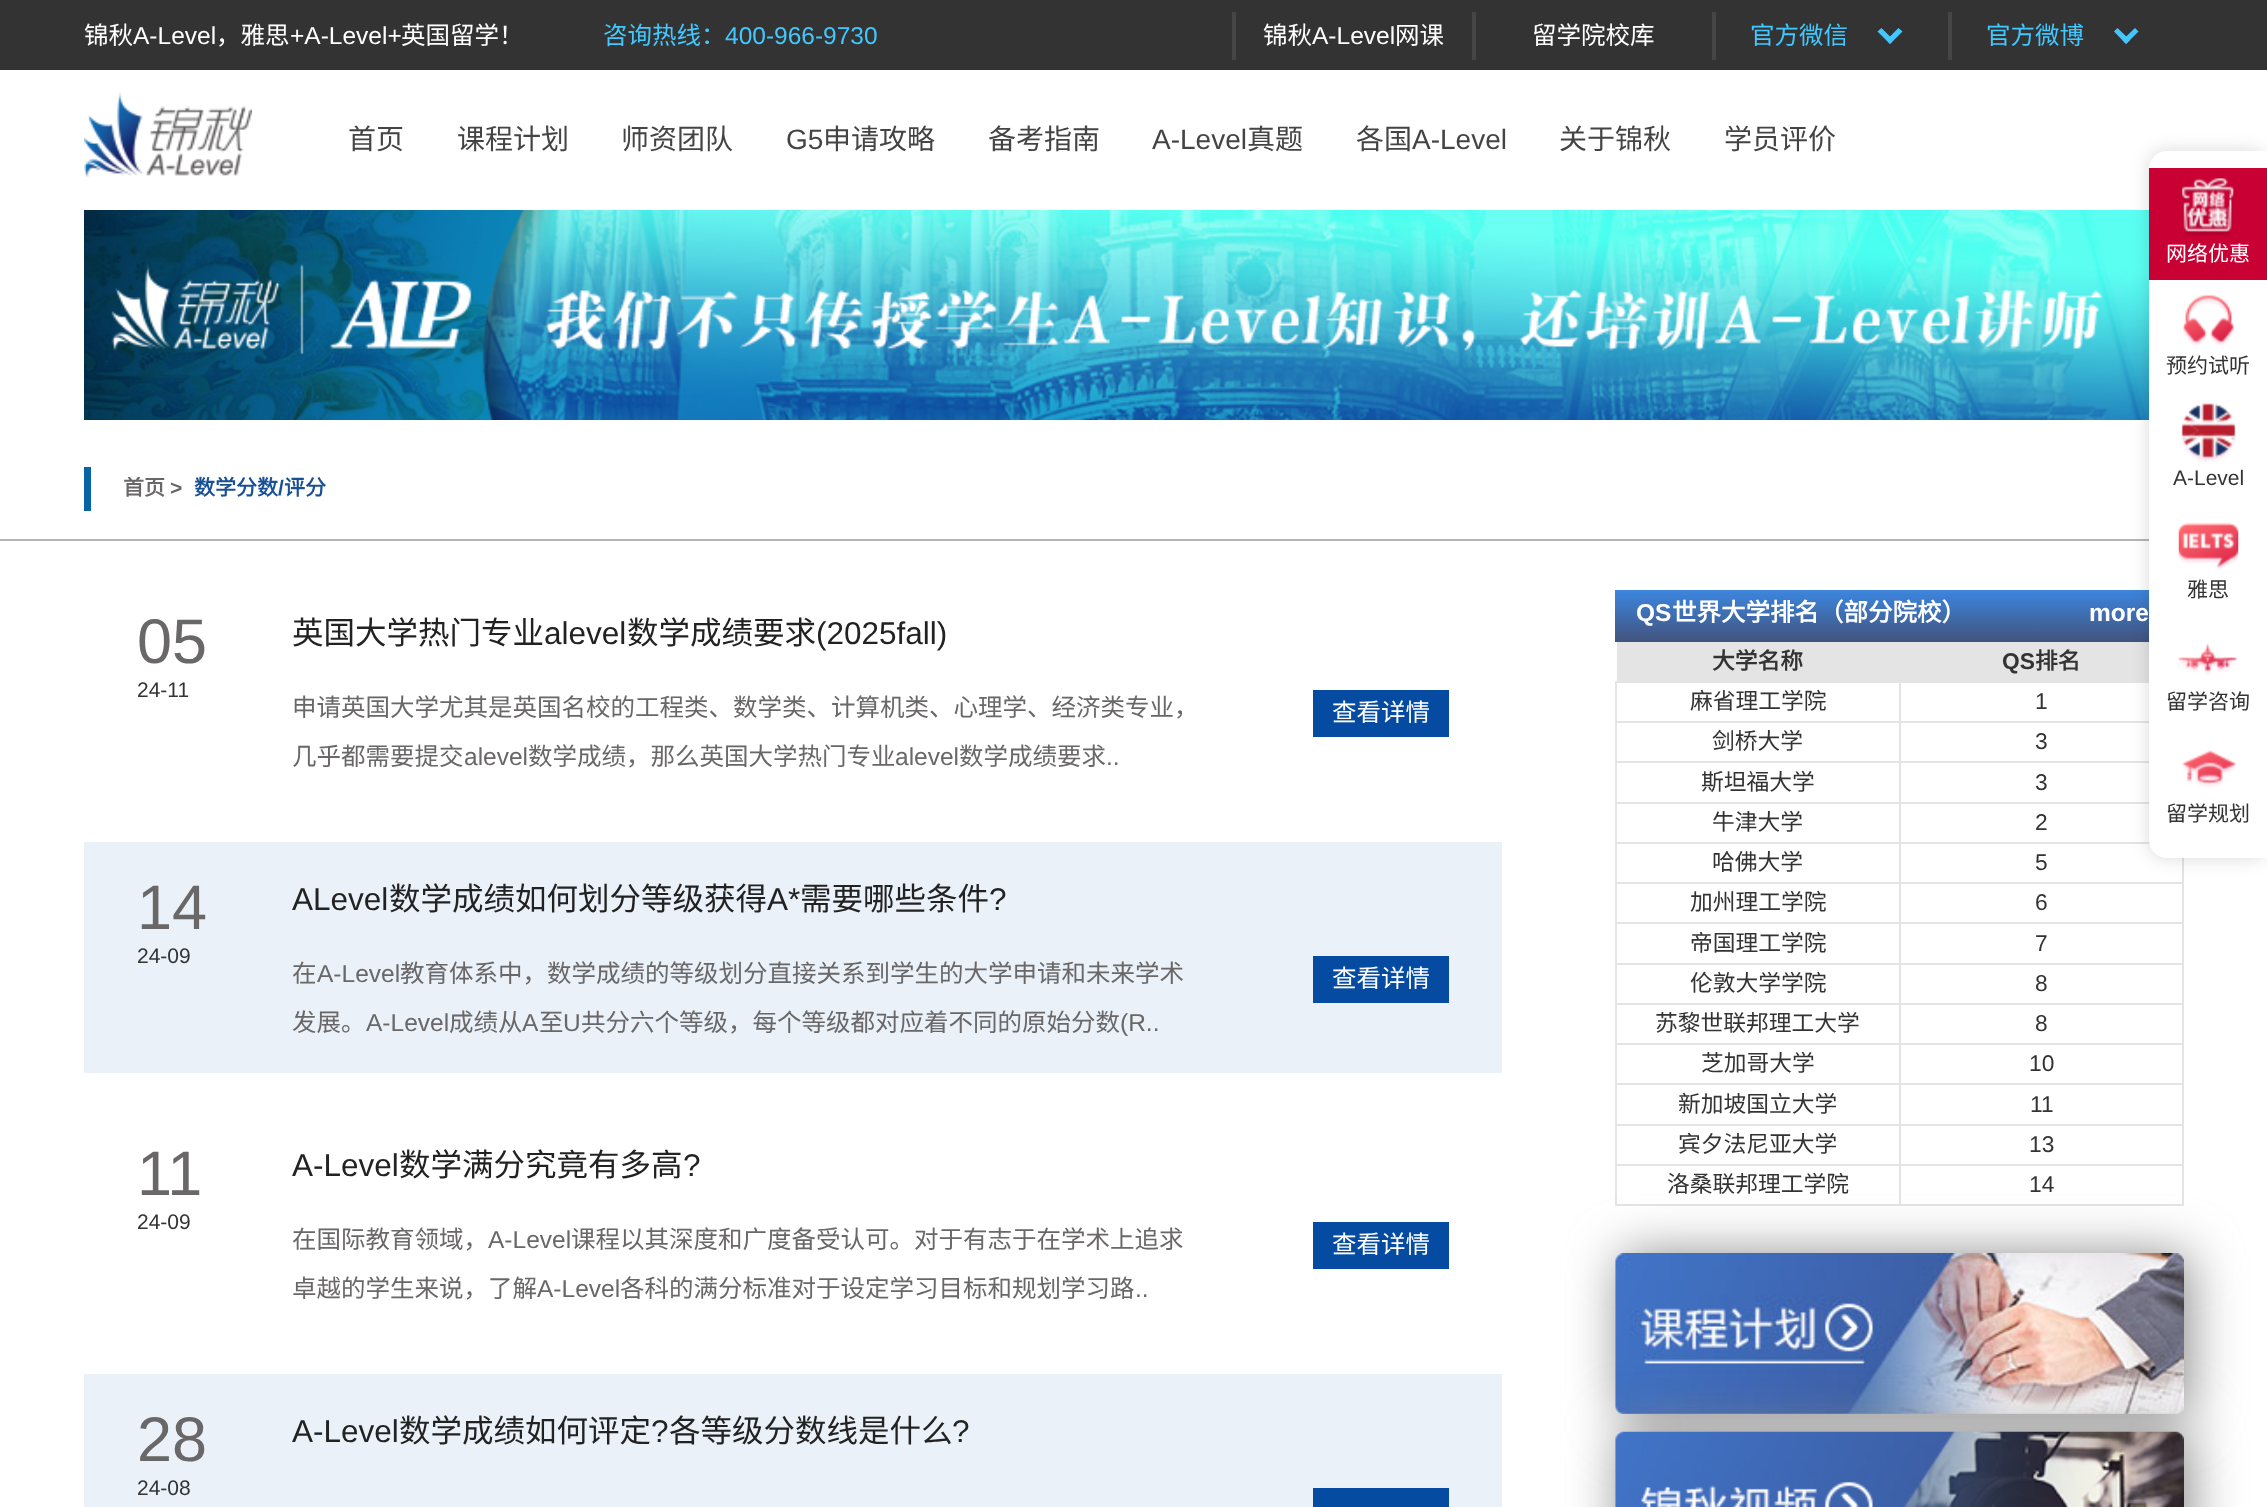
<svg xmlns="http://www.w3.org/2000/svg" xmlns:xlink="http://www.w3.org/1999/xlink" width="2267" height="1507" viewBox="0 0 2267 1507">
<style>
.cls-1{font:24.5px Noto Sans CJK SC;fill:#ffffff}
.cls-2{font:24.5px Liberation Sans;fill:#ffffff}
.cls-3{font:24.5px Noto Sans CJK SC;fill:#41c8ff}
.cls-4{font:24.5px Liberation Sans;fill:#41c8ff}
.cls-5{font:28px Noto Sans CJK SC;fill:#444444}
.cls-6{font:28px Liberation Sans;fill:#444444}
.cls-7{font:21px Noto Sans CJK SC;fill:#ffffff}
.cls-8{font:21px Noto Sans CJK SC;fill:#333333}
.cls-9{font:21px Liberation Sans;fill:#333333}
.cls-10{font:bold 21px Noto Sans CJK SC;fill:#696767}
.cls-11{font:bold 21px Liberation Sans;fill:#696767}
.cls-12{font:bold 21px Noto Sans CJK SC;fill:#185095}
.cls-13{font:bold 21px Liberation Sans;fill:#185095}
.cls-14{font:63px Liberation Sans;fill:#696767}
.cls-15{font:31.5px Noto Sans CJK SC;fill:#222222}
.cls-16{font:31.5px Liberation Sans;fill:#222222}
.cls-17{font:24.5px Noto Sans CJK SC;fill:#696767}
.cls-18{font:24.5px Liberation Sans;fill:#696767}
.cls-19{font:bold 24.5px Liberation Sans;fill:#ffffff}
.cls-20{font:bold 24.5px Noto Sans CJK SC;fill:#ffffff}
.cls-21{font:bold 22.75px Noto Sans CJK SC;fill:#333333}
.cls-22{font:bold 22.75px Liberation Sans;fill:#333333}
.cls-23{font:22.75px Noto Sans CJK SC;fill:#333333}
.cls-24{font:22.75px Liberation Sans;fill:#333333}
</style>
<defs>
<linearGradient id="g1" gradientUnits="userSpaceOnUse" x1="1900" y1="590" x2="1900" y2="642"><stop offset="0" stop-color="#3c86df"/><stop offset="1" stop-color="#42537d"/></linearGradient>
</defs>
<rect width="100%" height="100%" fill="#ffffff"/>
<rect fill="#333333" x="0" y="0" width="2267" height="70"/>
<rect fill="#464646" x="1232" y="12" width="4" height="48"/>
<rect fill="#464646" x="1472" y="12" width="4" height="48"/>
<rect fill="#464646" x="1712" y="12" width="4" height="48"/>
<path fill="#42c8ff" d="M1898.5 28L1902.5 31.5L1890 44L1886.5 40Z"/>
<path fill="#42c8ff" d="M1881.5 28L1893.5 40L1890 44L1877.5 31.5Z"/>
<rect fill="#464646" x="1948" y="12" width="4" height="48"/>
<path fill="#42c8ff" d="M2135 28L2138.5 31.5L2126 44L2122.5 40Z"/>
<path fill="#42c8ff" d="M2117.5 28L2130 40L2126 44L2114 31.5Z"/>
<image xlink:href="image0.png" x="84" y="91" width="168" height="86"/>
<image xlink:href="image1.png" x="84" y="210" width="2065" height="210"/>
<rect fill="#b5b5b5" x="0" y="539" width="2149" height="2"/>
<rect fill="url(#g1)" x="1615" y="590" width="534" height="52"/>
<rect fill="#e4e4e4" x="1901" y="642" width="248" height="41"/>
<rect fill="#e4e4e4" x="1899" y="721" width="250" height="2"/>
<rect fill="#e4e4e4" x="1899" y="761" width="250" height="2"/>
<rect fill="#e4e4e4" x="1899" y="802" width="250" height="2"/>
<rect fill="#e4e4e4" x="1899" y="842" width="251" height="2"/>
<rect fill="#e4e4e4" x="1899" y="882" width="285" height="2"/>
<rect fill="#e4e4e4" x="1899" y="922" width="285" height="2"/>
<rect fill="#e4e4e4" x="1899" y="963" width="285" height="2"/>
<rect fill="#e4e4e4" x="1899" y="1003" width="285" height="2"/>
<rect fill="#e4e4e4" x="1899" y="1043" width="285" height="2"/>
<rect fill="#e4e4e4" x="1899" y="1083" width="285" height="2"/>
<rect fill="#e4e4e4" x="1899" y="1124" width="285" height="2"/>
<rect fill="#e4e4e4" x="1899" y="1164" width="285" height="2"/>
<rect fill="#e4e4e4" x="2182" y="1164" width="2" height="42"/>
<rect fill="#e4e4e4" x="2182" y="1124" width="2" height="42"/>
<rect fill="#e4e4e4" x="2182" y="1083" width="2" height="42"/>
<rect fill="#e4e4e4" x="2182" y="1043" width="2" height="42"/>
<rect fill="#e4e4e4" x="2182" y="1003" width="2" height="42"/>
<rect fill="#e4e4e4" x="2182" y="963" width="2" height="42"/>
<rect fill="#e4e4e4" x="2182" y="922" width="2" height="42"/>
<rect fill="#e4e4e4" x="2182" y="858" width="2" height="66"/>
<rect fill="#000000" fill-opacity="0.15" filter="blur(9px)" x="2149" y="151" width="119" height="707" rx="18"/>
<path fill="#ffffff" d="M2167 151H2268V858H2167C2157 858 2149 850 2149 840V169C2149 159 2157 151 2167 151Z"/>
<rect fill="#c80034" x="2149" y="168" width="118" height="112"/>
<image xlink:href="image2.png" x="2181" y="178" width="54" height="58"/>
<image xlink:href="image3.png" x="2183" y="294" width="52" height="52"/>
<image xlink:href="image4.png" x="2181" y="403" width="55" height="59"/>
<image xlink:href="image5.png" x="2178" y="522" width="61" height="48"/>
<image xlink:href="image6.png" x="2178" y="643" width="59" height="32"/>
<image xlink:href="image7.png" x="2182" y="750" width="55" height="38"/>
<rect fill="#0764a5" x="84" y="467" width="7" height="44"/>
<rect fill="#054ba1" x="1313" y="690" width="136" height="47"/>
<rect fill="#eaf1f9" x="84" y="842" width="1418" height="231"/>
<rect fill="#054ba1" x="1313" y="956" width="136" height="47"/>
<rect fill="#054ba1" x="1313" y="1222" width="136" height="47"/>
<rect fill="#eaf1f9" x="84" y="1374" width="1418" height="133"/>
<rect fill="#054ba1" x="1313" y="1488" width="136" height="19"/>
<rect fill="#e4e4e4" x="1617" y="642" width="284" height="39"/>
<rect fill="#e4e4e4" x="1899" y="1204" width="285" height="2"/>
<rect fill="#e4e4e4" x="1899" y="1164" width="2" height="42"/>
<rect fill="#e4e4e4" x="1615" y="1164" width="286" height="2"/>
<rect fill="#e4e4e4" x="1899" y="1124" width="2" height="42"/>
<rect fill="#e4e4e4" x="1615" y="1124" width="286" height="2"/>
<rect fill="#e4e4e4" x="1899" y="1083" width="2" height="42"/>
<rect fill="#e4e4e4" x="1615" y="1083" width="286" height="2"/>
<rect fill="#e4e4e4" x="1899" y="1043" width="2" height="42"/>
<rect fill="#e4e4e4" x="1615" y="1043" width="286" height="2"/>
<rect fill="#e4e4e4" x="1899" y="1003" width="2" height="42"/>
<rect fill="#e4e4e4" x="1615" y="1003" width="286" height="2"/>
<rect fill="#e4e4e4" x="1899" y="963" width="2" height="42"/>
<rect fill="#e4e4e4" x="1615" y="963" width="286" height="2"/>
<rect fill="#e4e4e4" x="1899" y="922" width="2" height="42"/>
<rect fill="#e4e4e4" x="1615" y="922" width="286" height="2"/>
<rect fill="#e4e4e4" x="1899" y="882" width="2" height="42"/>
<rect fill="#e4e4e4" x="1615" y="882" width="286" height="2"/>
<rect fill="#e4e4e4" x="1899" y="842" width="2" height="42"/>
<rect fill="#e4e4e4" x="1615" y="842" width="286" height="2"/>
<rect fill="#e4e4e4" x="1899" y="802" width="2" height="42"/>
<rect fill="#e4e4e4" x="1615" y="802" width="286" height="2"/>
<rect fill="#e4e4e4" x="1899" y="761" width="2" height="42"/>
<rect fill="#e4e4e4" x="1615" y="761" width="286" height="2"/>
<rect fill="#e4e4e4" x="1899" y="721" width="2" height="42"/>
<rect fill="#e4e4e4" x="1615" y="721" width="286" height="2"/>
<rect fill="#e4e4e4" x="1899" y="681" width="2" height="42"/>
<rect fill="#e4e4e4" x="1615" y="681" width="286" height="2"/>
<rect fill="#e4e4e4" x="1615" y="1204" width="286" height="2"/>
<rect fill="#e4e4e4" x="1615" y="1164" width="2" height="42"/>
<rect fill="#e4e4e4" x="1615" y="1124" width="2" height="42"/>
<rect fill="#e4e4e4" x="1615" y="1083" width="2" height="42"/>
<rect fill="#e4e4e4" x="1615" y="1043" width="2" height="42"/>
<rect fill="#e4e4e4" x="1615" y="1003" width="2" height="42"/>
<rect fill="#e4e4e4" x="1615" y="963" width="2" height="42"/>
<rect fill="#e4e4e4" x="1615" y="922" width="2" height="42"/>
<rect fill="#e4e4e4" x="1615" y="882" width="2" height="42"/>
<rect fill="#e4e4e4" x="1615" y="842" width="2" height="42"/>
<rect fill="#e4e4e4" x="1615" y="802" width="2" height="42"/>
<rect fill="#e4e4e4" x="1615" y="761" width="2" height="42"/>
<rect fill="#e4e4e4" x="1615" y="721" width="2" height="42"/>
<rect fill="#e4e4e4" x="1615" y="681" width="2" height="42"/>
<rect fill="#888888" filter="blur(26px)" x="1621" y="1255" width="568" height="161" rx="7"/>
<image xlink:href="image8.png" x="1615" y="1253" width="569" height="161"/>
<rect fill="#888888" filter="blur(26px)" x="1621" y="1433" width="568" height="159" rx="7"/>
<image xlink:href="image9.png" x="1615" y="1431" width="569" height="76"/>
<text class="cls-1" x="84" y="44">锦秋</text>
<text class="cls-2" x="133" y="44">A-Level</text>
<text class="cls-1" x="216" y="44">，雅思</text>
<text class="cls-2" x="290" y="44">+A-Level+</text>
<text class="cls-1" x="401" y="44">英国留学！</text>
<text class="cls-3" x="603" y="44">咨询热线：</text>
<text class="cls-4" x="725" y="44">400-966-9730</text>
<text class="cls-1" x="1263" y="44">锦秋</text>
<text class="cls-2" x="1312" y="44">A-Level</text>
<text class="cls-1" x="1395" y="44">网课</text>
<text class="cls-1" x="1532" y="44">留学院校库</text>
<text class="cls-3" x="1750" y="44">官方微信</text>
<text class="cls-3" x="1986" y="44">官方微博</text>
<text class="cls-5" x="348" y="149">首页</text>
<text class="cls-5" x="457" y="149">课程计划</text>
<text class="cls-5" x="621" y="149">师资团队</text>
<text class="cls-6" x="786" y="149">G5</text>
<text class="cls-5" x="823" y="149">申请攻略</text>
<text class="cls-5" x="988" y="149">备考指南</text>
<text class="cls-6" x="1152" y="149">A-Level</text>
<text class="cls-5" x="1247" y="149">真题</text>
<text class="cls-5" x="1356" y="149">各国</text>
<text class="cls-6" x="1412" y="149">A-Level</text>
<text class="cls-5" x="1559" y="149">关于锦秋</text>
<text class="cls-5" x="1724" y="149">学员评价</text>
<text class="cls-7" x="2166" y="261">网络优惠</text>
<text class="cls-8" x="2166" y="373">预约试听</text>
<text class="cls-9" x="2173" y="485">A-Level</text>
<text class="cls-8" x="2187" y="597">雅思</text>
<text class="cls-8" x="2166" y="709">留学咨询</text>
<text class="cls-8" x="2166" y="821">留学规划</text>
<text class="cls-10" x="123" y="495">首页</text>
<text class="cls-11" x="170" y="495">&gt;</text>
<text class="cls-12" x="194" y="495">数学分数</text>
<text class="cls-13" x="278" y="495">/</text>
<text class="cls-12" x="284" y="495">评分</text>
<text class="cls-14" x="137" y="663">05</text>
<text class="cls-9" x="137" y="697">24-11</text>
<text class="cls-15" x="292" y="644">英国大学热门专业</text>
<text class="cls-16" x="544" y="644">alevel</text>
<text class="cls-15" x="627" y="644">数学成绩要求</text>
<text class="cls-16" x="816" y="644">(2025fall)</text>
<text class="cls-17" x="292" y="716">申请英国大学尤其是英国名校的工程类、数学类、计算机类、心理学、经济类专业，</text>
<text class="cls-17" x="292" y="765">几乎都需要提交</text>
<text class="cls-18" x="464" y="765">alevel</text>
<text class="cls-17" x="528" y="765">数学成绩，那么英国大学热门专业</text>
<text class="cls-18" x="895" y="765">alevel</text>
<text class="cls-17" x="959" y="765">数学成绩要求</text>
<text class="cls-18" x="1106" y="765">..</text>
<text class="cls-1" x="1332" y="721">查看详情</text>
<text class="cls-14" x="137" y="929">14</text>
<text class="cls-9" x="137" y="963">24-09</text>
<text class="cls-16" x="292" y="910">ALevel</text>
<text class="cls-15" x="389" y="910">数学成绩如何划分等级获得</text>
<text class="cls-16" x="767" y="910">A*</text>
<text class="cls-15" x="800" y="910">需要哪些条件</text>
<text class="cls-16" x="989" y="910">?</text>
<text class="cls-17" x="292" y="982">在</text>
<text class="cls-18" x="317" y="982">A-Level</text>
<text class="cls-17" x="400" y="982">教育体系中，数学成绩的等级划分直接关系到学生的大学申请和未来学术</text>
<text class="cls-17" x="292" y="1031">发展。</text>
<text class="cls-18" x="366" y="1031">A-Level</text>
<text class="cls-17" x="449" y="1031">成绩从</text>
<text class="cls-18" x="522" y="1031">A</text>
<text class="cls-17" x="539" y="1031">至</text>
<text class="cls-18" x="563" y="1031">U</text>
<text class="cls-17" x="581" y="1031">共分六个等级，每个等级都对应着不同的原始分数</text>
<text class="cls-18" x="1120" y="1031">(R..</text>
<text class="cls-1" x="1332" y="987">查看详情</text>
<text class="cls-14" x="137" y="1195">11</text>
<text class="cls-9" x="137" y="1229">24-09</text>
<text class="cls-16" x="292" y="1176">A-Level</text>
<text class="cls-15" x="399" y="1176">数学满分究竟有多高</text>
<text class="cls-16" x="683" y="1176">?</text>
<text class="cls-17" x="292" y="1248">在国际教育领域，</text>
<text class="cls-18" x="488" y="1248">A-Level</text>
<text class="cls-17" x="571" y="1248">课程以其深度和广度备受认可。对于有志于在学术上追求</text>
<text class="cls-17" x="292" y="1297">卓越的学生来说，了解</text>
<text class="cls-18" x="537" y="1297">A-Level</text>
<text class="cls-17" x="620" y="1297">各科的满分标准对于设定学习目标和规划学习路</text>
<text class="cls-18" x="1135" y="1297">..</text>
<text class="cls-1" x="1332" y="1253">查看详情</text>
<text class="cls-14" x="137" y="1461">28</text>
<text class="cls-9" x="137" y="1495">24-08</text>
<text class="cls-16" x="292" y="1442">A-Level</text>
<text class="cls-15" x="399" y="1442">数学成绩如何评定</text>
<text class="cls-16" x="651" y="1442">?</text>
<text class="cls-15" x="669" y="1442">各等级分数线是什么</text>
<text class="cls-16" x="952" y="1442">?</text>
<text class="cls-19" x="1636" y="621">QS</text>
<text class="cls-20" x="1672" y="621">世界大学排名（部分院校）</text>
<text class="cls-19" x="2089" y="621">more</text>
<text class="cls-21" x="1712" y="669">大学名称</text>
<text class="cls-22" x="2002" y="669">QS</text>
<text class="cls-21" x="2035" y="669">排名</text>
<text class="cls-23" x="1690" y="709">麻省理工学院</text>
<text class="cls-24" x="2035" y="709">1</text>
<text class="cls-23" x="1712" y="749">剑桥大学</text>
<text class="cls-24" x="2035" y="749">3</text>
<text class="cls-23" x="1701" y="790">斯坦福大学</text>
<text class="cls-24" x="2035" y="790">3</text>
<text class="cls-23" x="1712" y="830">牛津大学</text>
<text class="cls-24" x="2035" y="830">2</text>
<text class="cls-23" x="1712" y="870">哈佛大学</text>
<text class="cls-24" x="2035" y="870">5</text>
<text class="cls-23" x="1690" y="910">加州理工学院</text>
<text class="cls-24" x="2035" y="910">6</text>
<text class="cls-23" x="1690" y="951">帝国理工学院</text>
<text class="cls-24" x="2035" y="951">7</text>
<text class="cls-23" x="1690" y="991">伦敦大学学院</text>
<text class="cls-24" x="2035" y="991">8</text>
<text class="cls-23" x="1655" y="1031">苏黎世联邦理工大学</text>
<text class="cls-24" x="2035" y="1031">8</text>
<text class="cls-23" x="1701" y="1071">芝加哥大学</text>
<text class="cls-24" x="2029" y="1071">10</text>
<text class="cls-23" x="1678" y="1112">新加坡国立大学</text>
<text class="cls-24" x="2030" y="1112">11</text>
<text class="cls-23" x="1678" y="1152">宾夕法尼亚大学</text>
<text class="cls-24" x="2029" y="1152">13</text>
<text class="cls-23" x="1667" y="1192">洛桑联邦理工学院</text>
<text class="cls-24" x="2029" y="1192">14</text>
</svg>
